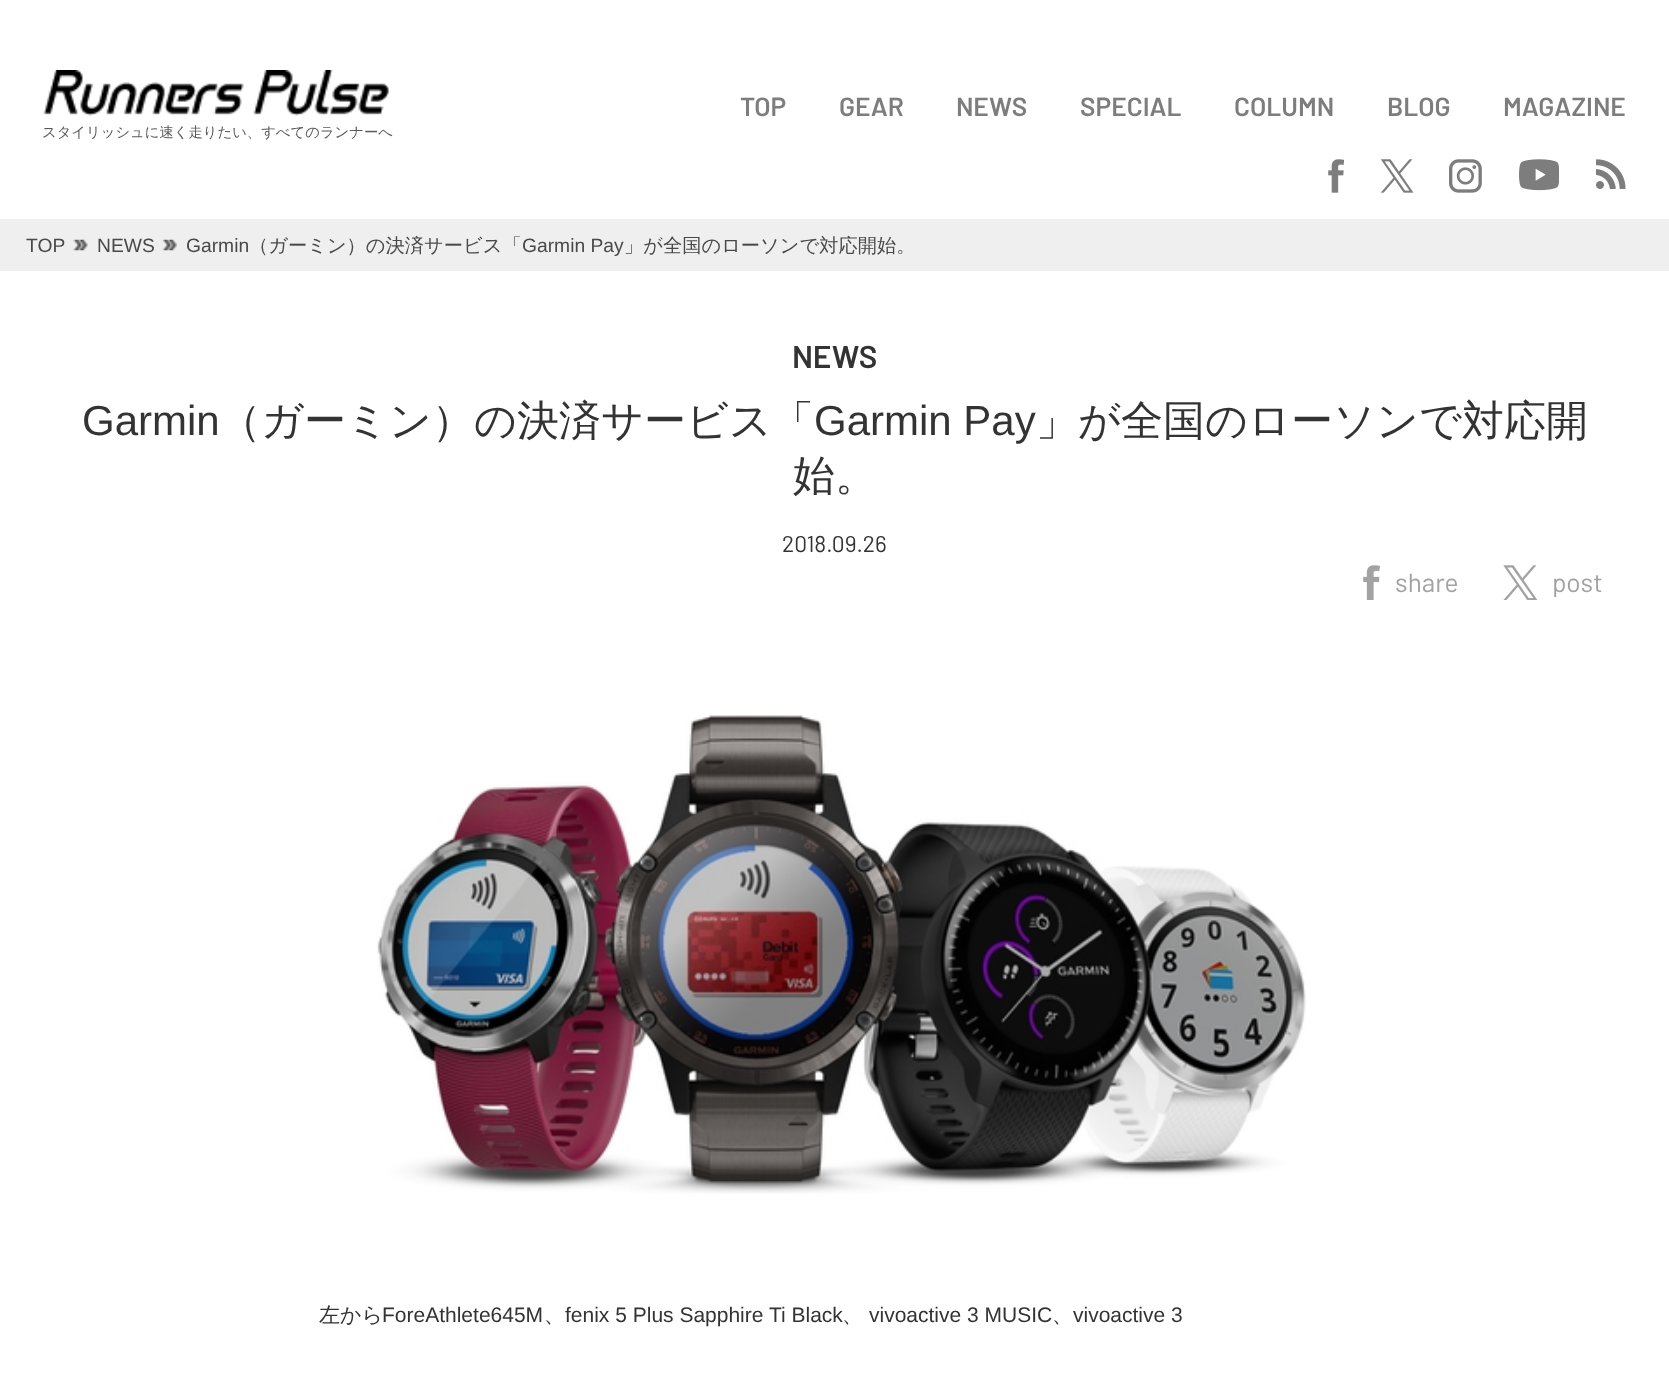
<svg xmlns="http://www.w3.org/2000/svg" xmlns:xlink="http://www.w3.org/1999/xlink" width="1669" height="1388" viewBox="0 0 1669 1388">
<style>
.cls-1{font:600 26.25px Barlow;fill:#7d7d7d}
.cls-2{font:500 14.35px WenQuanYi Zen Hei;fill:#5a5a5a}
.cls-3{font:19.25px Liberation Sans;fill:#494949}
.cls-4{font:500 19.25px WenQuanYi Zen Hei;fill:#494949}
.cls-5{font:600 31.5px Barlow;fill:#333333}
.cls-6{font:42px Liberation Sans;fill:#333333}
.cls-7{font:500 42px WenQuanYi Zen Hei;fill:#333333}
.cls-8{font:22.75px Barlow;fill:#333333}
.cls-9{font:26.25px Barlow;fill:#a2a2a2}
.cls-10{font:500 21px WenQuanYi Zen Hei;fill:#333333}
.cls-11{font:21px Liberation Sans;fill:#333333}
</style>
<rect width="100%" height="100%" fill="#ffffff"/>
<image xlink:href="image0.png" x="43" y="70" width="346" height="46"/>
<image xlink:href="image1.png" x="1328" y="159" width="16" height="34"/>
<image xlink:href="image2.png" x="1381" y="159" width="33" height="34"/>
<image xlink:href="image3.png" x="1449" y="159" width="33" height="34"/>
<image xlink:href="image4.png" x="1519" y="159" width="40" height="32"/>
<image xlink:href="image5.png" x="1596" y="159" width="30" height="30"/>
<rect fill="#efefef" x="0" y="219" width="1669" height="52"/>
<image xlink:href="image6.png" x="73" y="239" width="15" height="12"/>
<image xlink:href="image7.png" x="162" y="239" width="15" height="12"/>
<image xlink:href="image8.png" x="1363" y="565" width="17" height="35"/>
<image xlink:href="image9.png" x="1503" y="565" width="35" height="35"/>
<image xlink:href="image10.png" x="377" y="715" width="929" height="479"/>
<text class="cls-1" x="740" y="116">TOP</text>
<text class="cls-1" x="839" y="116">GEAR</text>
<text class="cls-1" x="956" y="116">NEWS</text>
<text class="cls-1" x="1080" y="116">SPECIAL</text>
<text class="cls-1" x="1234" y="116">COLUMN</text>
<text class="cls-1" x="1387" y="116">BLOG</text>
<text class="cls-1" x="1503" y="116">MAGAZINE</text>
<text class="cls-2" x="42" y="137">スタイリッシュに速く走りたい、すべてのランナーへ</text>
<text class="cls-3" x="26" y="252">TOP</text>
<text class="cls-3" x="97" y="252">NEWS</text>
<text class="cls-3" x="186" y="252">Garmin</text>
<text class="cls-4" x="249" y="252">（ガーミン）の決済サービス「</text>
<text class="cls-3" x="522" y="252">Garmin Pay</text>
<text class="cls-4" x="624" y="252">」が全国のローソンで対応開始。</text>
<text class="cls-5" x="792" y="368">NEWS</text>
<text class="cls-6" x="82" y="435">Garmin</text>
<text class="cls-7" x="219" y="435">（ガーミン）の決済サービス「</text>
<text class="cls-6" x="814" y="435">Garmin Pay</text>
<text class="cls-7" x="1036" y="435">」が全国のローソンで対応開</text>
<text class="cls-7" x="793" y="490">始。</text>
<text class="cls-8" x="782" y="552">2018.09.26</text>
<text class="cls-9" x="1395" y="592">share</text>
<text class="cls-9" x="1552" y="592">post</text>
<text class="cls-10" x="319" y="1322">左から</text>
<text class="cls-11" x="382" y="1322">ForeAthlete645M</text>
<text class="cls-10" x="544" y="1322">、</text>
<text class="cls-11" x="565" y="1322">fenix 5 Plus Sapphire Ti Black</text>
<text class="cls-10" x="842" y="1322">、</text>
<text class="cls-11" x="869" y="1322">vivoactive 3 MUSIC</text>
<text class="cls-10" x="1052" y="1322">、</text>
<text class="cls-11" x="1073" y="1322">vivoactive 3</text>
</svg>
